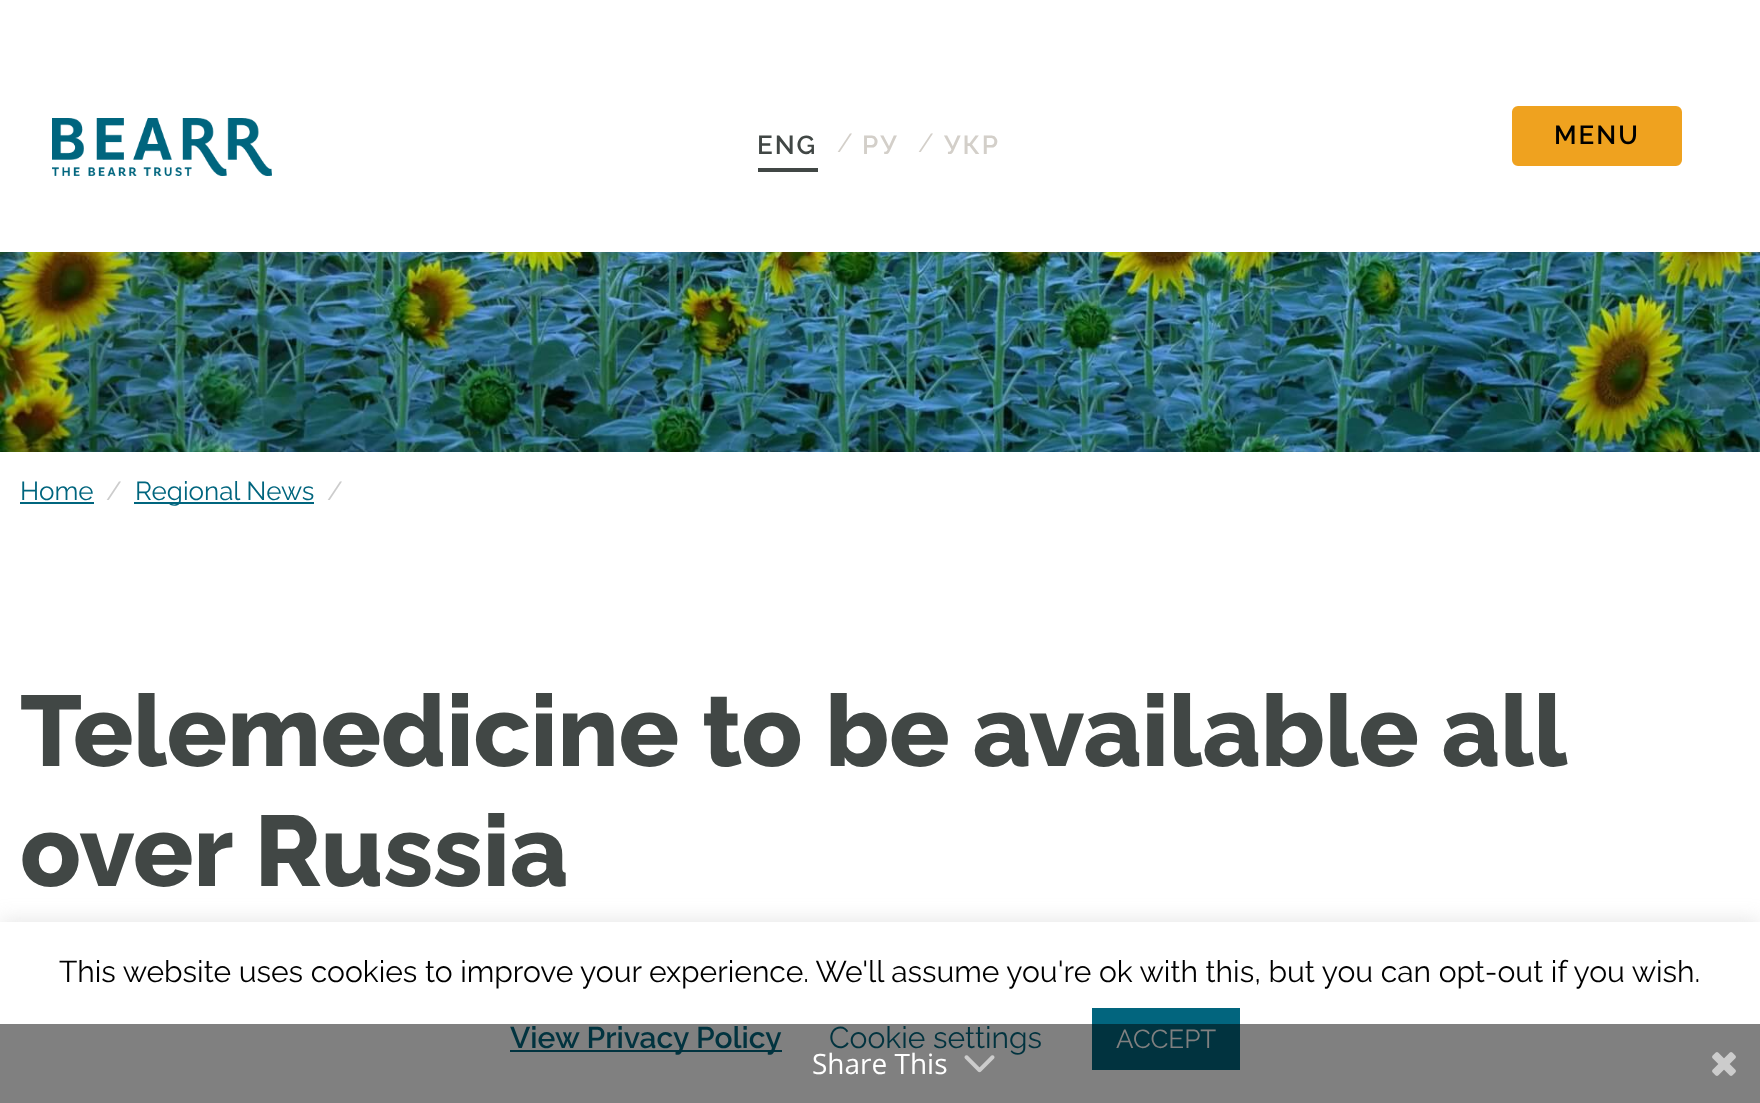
<svg xmlns="http://www.w3.org/2000/svg" xmlns:xlink="http://www.w3.org/1999/xlink" width="1760" height="1103" viewBox="0 0 1760 1103">
<style>
.cls-1{font:600 26px Raleway;letter-spacing:2px;fill:#414745}
.cls-2{font:26px Raleway;fill:#d3cfc9}
.cls-3{font:600 26px Raleway;letter-spacing:2px;fill:#d3cfc9}
.cls-4{font:600 26px Raleway;letter-spacing:2px;fill:#000000}
.cls-5{font:26px Raleway;fill:#00657e}
.cls-6{font:26px Raleway;fill:#cccccc}
.cls-7{font:800 100px Raleway;fill:#414745}
.cls-8{font:30px Raleway;fill:#000000}
.cls-9{font:600 30px Raleway;fill:#01333f}
.cls-10{font:30px Raleway;fill:#01333f}
.cls-11{font:26px Raleway;fill:#808080}
.cls-12{font:28px Open Sans;fill:#ffffff}
</style>
<rect width="100%" height="100%" fill="#ffffff"/>
<image xlink:href="image0.png" x="52" y="118" width="220" height="58"/>
<rect fill="#414745" x="758" y="168" width="60" height="4"/>
<rect fill="#efa21f" stroke="#efa21f" stroke-width="2" x="1513" y="107" width="168" height="58" rx="5"/>
<image xlink:href="image1.png" x="0" y="252" width="1760" height="200"/>
<rect fill="#00657e" x="20" y="502" width="74" height="2"/>
<rect fill="#00657e" x="134" y="502" width="180" height="2"/>
<rect fill="#acabab" fill-opacity="0.3" filter="blur(10px)" x="0" y="920" width="1760" height="182"/>
<rect fill="#ffffff" x="0" y="922" width="1760" height="102"/>
<rect fill="#808080" x="0" y="1024" width="1760" height="79"/>
<rect fill="#01333f" x="510" y="1050" width="272" height="2"/>
<rect fill="#02657e" x="1092" y="1008" width="148" height="16"/>
<rect fill="#01333f" x="1092" y="1024" width="148" height="46"/>
<image xlink:href="image2.png" x="964" y="1055" width="31" height="18"/>
<image xlink:href="image3.png" x="1712" y="1052" width="24" height="24"/>
<text class="cls-1" x="757" y="154">ENG</text>
<text class="cls-2" x="837" y="152">/</text>
<text class="cls-3" x="862" y="154">PУ</text>
<text class="cls-2" x="918" y="152">/</text>
<text class="cls-3" x="944" y="154">УКР</text>
<text class="cls-4" x="1554" y="144">MENU</text>
<text class="cls-5" x="20" y="500">Home</text>
<text class="cls-6" x="106" y="500">/</text>
<text class="cls-5" x="135" y="500">Regional News</text>
<text class="cls-6" x="327" y="500">/</text>
<text class="cls-7"><tspan x="20" y="766" word-spacing="-0.5">Telemedicine to be available all</tspan><tspan x="20" y="886">over Russia</tspan></text>
<text class="cls-8" x="59" y="982">This website uses cookies to improve your experience. We'll assume you're ok with this, but you can opt-out if you wish.</text>
<text class="cls-9" x="510" y="1048">View Privacy Policy</text>
<text class="cls-10" x="829" y="1048">Cookie settings</text>
<text class="cls-11" x="1116" y="1048">ACCEPT</text>
<text class="cls-12" x="812" y="1074">Share This</text>
</svg>
